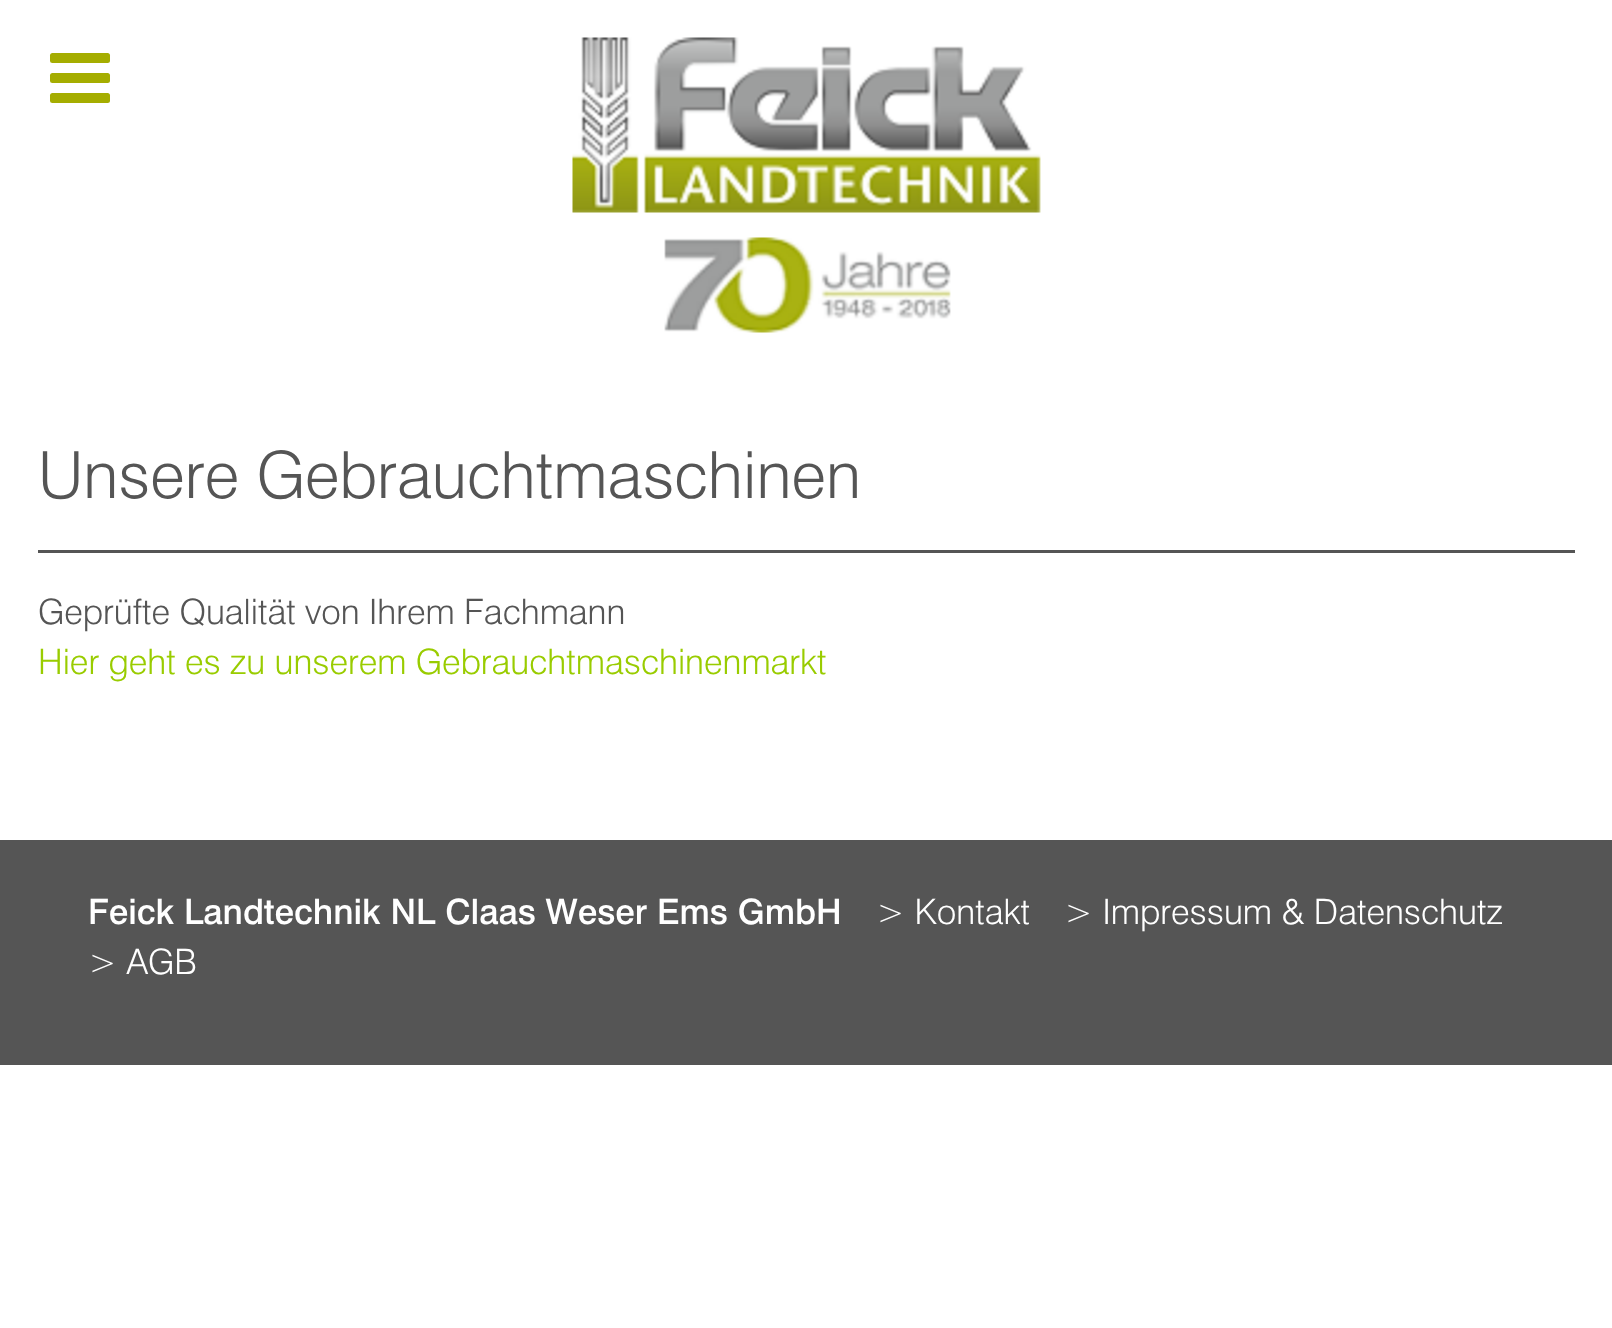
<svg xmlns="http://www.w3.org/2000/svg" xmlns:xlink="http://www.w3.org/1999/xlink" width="1612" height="1328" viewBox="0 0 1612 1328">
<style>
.cls-1{font:65px 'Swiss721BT';fill:#555555}
.cls-2{font:35px 'Swiss721BT';fill:#555555}
.cls-3{font:35px 'Swiss721BT';fill:#99cc00}
.cls-4{font:35px 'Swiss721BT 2';fill:#ffffff}
.cls-5{font:35px 'Swiss721BT';fill:#ffffff}
</style>
<rect width="100%" height="100%" fill="#ffffff"/>
<rect fill="#a5ad00" x="50" y="73" width="60" height="10" rx="2.5"/>
<rect fill="#a5ad00" x="50" y="53" width="60" height="10" rx="2.5"/>
<rect fill="#a5ad00" x="50" y="93" width="60" height="10" rx="2.5"/>
<image xlink:href="image0.png" x="572" y="37" width="469" height="176"/>
<image xlink:href="image1.png" x="664" y="237" width="287" height="96"/>
<rect fill="#555555" x="38" y="550" width="1537" height="3"/>
<rect fill="#555555" x="0" y="840" width="1612" height="225"/>
<text class="cls-1" x="38" y="498">Unsere Gebrauchtmaschinen</text>
<text class="cls-2" x="38" y="624">Geprüfte Qualität von Ihrem Fachmann</text>
<text class="cls-3" x="38" y="674">Hier geht es zu unserem Gebrauchtmaschinenmarkt</text>
<text class="cls-4" x="88" y="924">Feick Landtechnik NL Claas Weser Ems GmbH</text>
<text class="cls-5" x="876" y="924">&gt; Kontakt</text>
<text class="cls-5" x="1064" y="924">&gt; Impressum &amp; Datenschutz</text>
<text class="cls-5" x="88" y="974">&gt; AGB</text>
</svg>
